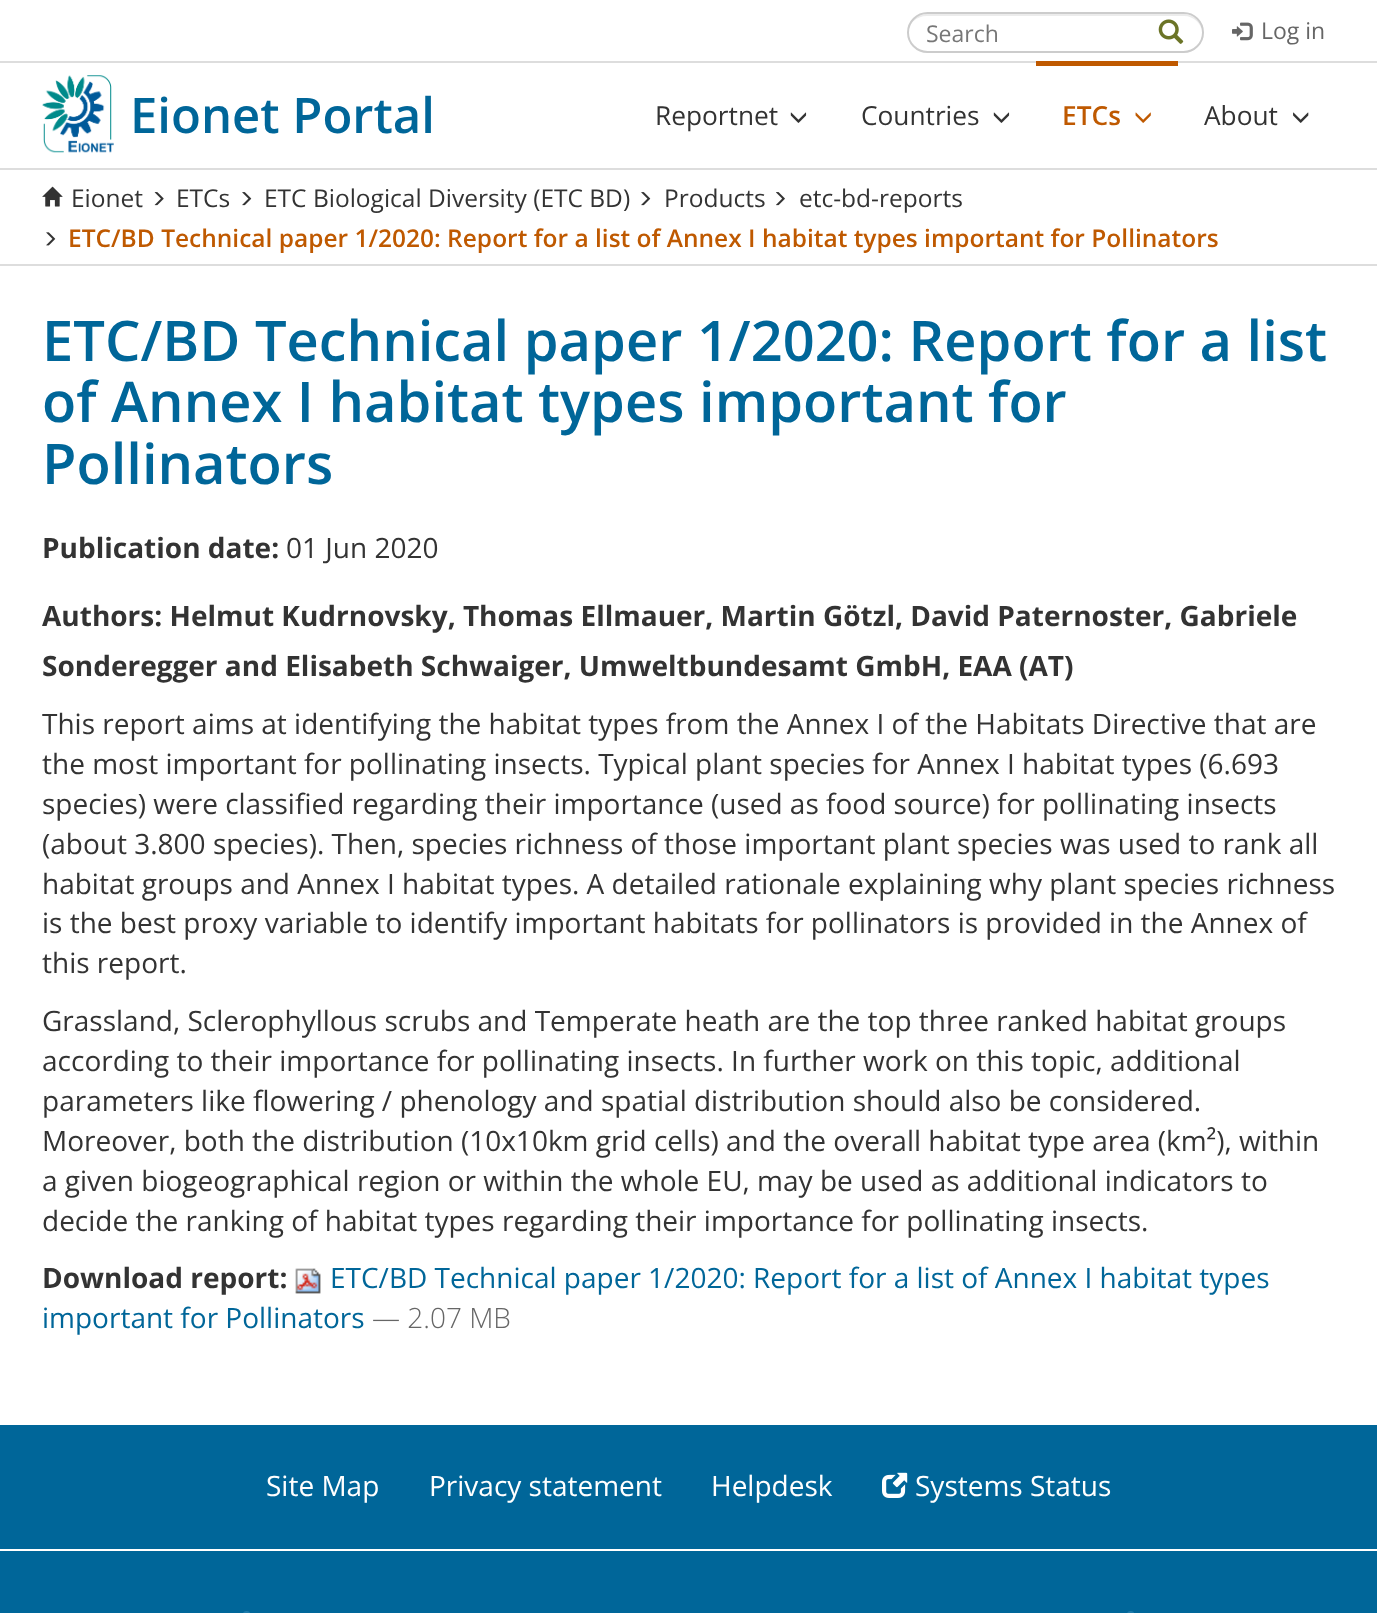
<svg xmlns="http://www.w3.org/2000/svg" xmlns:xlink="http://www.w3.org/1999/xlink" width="1377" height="1613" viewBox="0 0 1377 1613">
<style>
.cls-1{font:600 49px Open Sans;fill:#006699}
.cls-2{font:23px Open Sans;fill:#777777}
.cls-3{font:23px Open Sans;fill:#666666}
.cls-4{font:26.25px Open Sans;fill:#333333}
.cls-5{font:600 26.25px Open Sans;fill:#bf5900}
.cls-6{font:24.5px Open Sans;fill:#333333}
.cls-7{font:600 24.5px Open Sans;fill:#bf5900}
.cls-8{font:600 56px Open Sans;fill:#006699}
.cls-9{font:bold 28px Open Sans;fill:#333333}
.cls-10{font:28px Open Sans;fill:#333333}
.cls-11{font:28px Open Sans;fill:#006699}
.cls-12{font:300 28px Open Sans;fill:#666666}
.cls-13{font:28px Open Sans;fill:#ffffff}
</style>
<rect width="100%" height="100%" fill="#ffffff"/>
<rect fill="#dddddd" x="0" y="168" width="1377" height="2"/>
<rect fill="#dddddd" x="0" y="61" width="1377" height="2"/>
<image xlink:href="image0.png" x="42" y="75" width="72" height="78"/>
<path fill="#ececec" d="M927 16H1184C1194 16 1202 24 1202 33C1202 23 1194 14 1184 14H926C916 14 908 23 908 33C908 24 916 16 927 16Z"/>
<rect fill="none" stroke="#cccccc" stroke-width="2" x="908" y="13" width="295" height="39" rx="19.5"/>
<image xlink:href="image1.png" x="1158" y="19" width="26" height="25"/>
<image xlink:href="image2.png" x="1232" y="22" width="21" height="19"/>
<image xlink:href="image3.png" x="790" y="112" width="17" height="11"/>
<image xlink:href="image3.png" x="993" y="112" width="17" height="11"/>
<rect fill="#bf5900" x="1036" y="61" width="142" height="5"/>
<image xlink:href="image4.png" x="1135" y="112" width="16" height="11"/>
<image xlink:href="image5.png" x="1293" y="112" width="16" height="11"/>
<rect fill="#dddddd" x="0" y="264" width="1377" height="2"/>
<image xlink:href="image6.png" x="42" y="186" width="21" height="21"/>
<image xlink:href="image7.png" x="154" y="192" width="10" height="14"/>
<image xlink:href="image8.png" x="242" y="192" width="10" height="14"/>
<image xlink:href="image8.png" x="641" y="192" width="10" height="14"/>
<image xlink:href="image9.png" x="776" y="192" width="9" height="14"/>
<image xlink:href="image10.png" x="46" y="232" width="10" height="14"/>
<image xlink:href="image11.png" x="295" y="1268" width="26" height="26"/>
<rect fill="#006699" x="0" y="1425" width="1377" height="188"/>
<rect fill="#ffffff" x="0" y="1549" width="1377" height="2"/>
<image xlink:href="image12.png" x="882" y="1472" width="26" height="26"/>
<image xlink:href="image13.png" x="243" y="1611" width="7" height="2"/>
<image xlink:href="image14.png" x="1127" y="1611" width="7" height="2"/>
<text class="cls-1" x="130" y="133">Eionet Portal</text>
<text class="cls-2" x="926" y="42">Search</text>
<text class="cls-3" x="1261" y="39">Log in</text>
<text class="cls-4" x="655" y="125">Reportnet</text>
<text class="cls-4" x="861" y="125">Countries</text>
<text class="cls-5" x="1062" y="125">ETCs</text>
<text class="cls-4" x="1204" y="125">About</text>
<text class="cls-6" x="71" y="207">Eionet</text>
<text class="cls-6" x="176" y="207">ETCs</text>
<text class="cls-6" x="264" y="207">ETC Biological Diversity (ETC BD)</text>
<text class="cls-6" x="664" y="207">Products</text>
<text class="cls-6" x="799" y="207">etc-bd-reports</text>
<text class="cls-7" x="68" y="247">ETC/BD Technical paper 1/2020: Report for a list of Annex I habitat types important for Pollinators</text>
<text class="cls-8"><tspan x="42" y="361">ETC/BD Technical paper 1/2020: Report for a list</tspan><tspan x="42" y="422">of Annex I habitat types important for</tspan><tspan x="42" y="484">Pollinators</tspan></text>
<text class="cls-9" x="42" y="558">Publication date:</text>
<text class="cls-10" x="286" y="558">01 Jun 2020</text>
<text class="cls-9"><tspan x="42" y="626">Authors: Helmut Kudrnovsky, Thomas Ellmauer, Martin Götzl, David Paternoster, Gabriele</tspan><tspan x="42" y="676">Sonderegger and Elisabeth Schwaiger, Umweltbundesamt GmbH, EAA (AT)</tspan></text>
<text class="cls-10"><tspan x="42" y="734">This report aims at identifying the habitat types from the Annex I of the Habitats Directive that are</tspan><tspan x="42" y="774">the most important for pollinating insects. Typical plant species for Annex I habitat types (6.693</tspan><tspan x="42" y="814">species) were classified regarding their importance (used as food source) for pollinating insects</tspan><tspan x="42" y="854">(about 3.800 species). Then, species richness of those important plant species was used to rank all</tspan><tspan x="42" y="894">habitat groups and Annex I habitat types. A detailed rationale explaining why plant species richness</tspan><tspan x="42" y="933">is the best proxy variable to identify important habitats for pollinators is provided in the Annex of</tspan><tspan x="42" y="973">this report.</tspan></text>
<text class="cls-10"><tspan x="42" y="1031">Grassland, Sclerophyllous scrubs and Temperate heath are the top three ranked habitat groups</tspan><tspan x="42" y="1071">according to their importance for pollinating insects. In further work on this topic, additional</tspan><tspan x="42" y="1111">parameters like flowering / phenology and spatial distribution should also be considered.</tspan><tspan x="42" y="1151">Moreover, both the distribution (10x10km grid cells) and the overall habitat type area (km²), within</tspan><tspan x="42" y="1191">a given biogeographical region or within the whole EU, may be used as additional indicators to</tspan><tspan x="42" y="1231">decide the ranking of habitat types regarding their importance for pollinating insects.</tspan></text>
<text class="cls-9" x="42" y="1288">Download report:</text>
<text class="cls-11" x="330" y="1288">ETC/BD Technical paper 1/2020: Report for a list of Annex I habitat types</text>
<text class="cls-11" x="42" y="1328">important for Pollinators</text>
<text class="cls-12" x="372" y="1328">— 2.07 MB</text>
<text class="cls-13" x="266" y="1496">Site Map</text>
<text class="cls-13" x="429" y="1496">Privacy statement</text>
<text class="cls-13" x="711" y="1496">Helpdesk</text>
<text class="cls-13" x="915" y="1496">Systems Status</text>
</svg>
